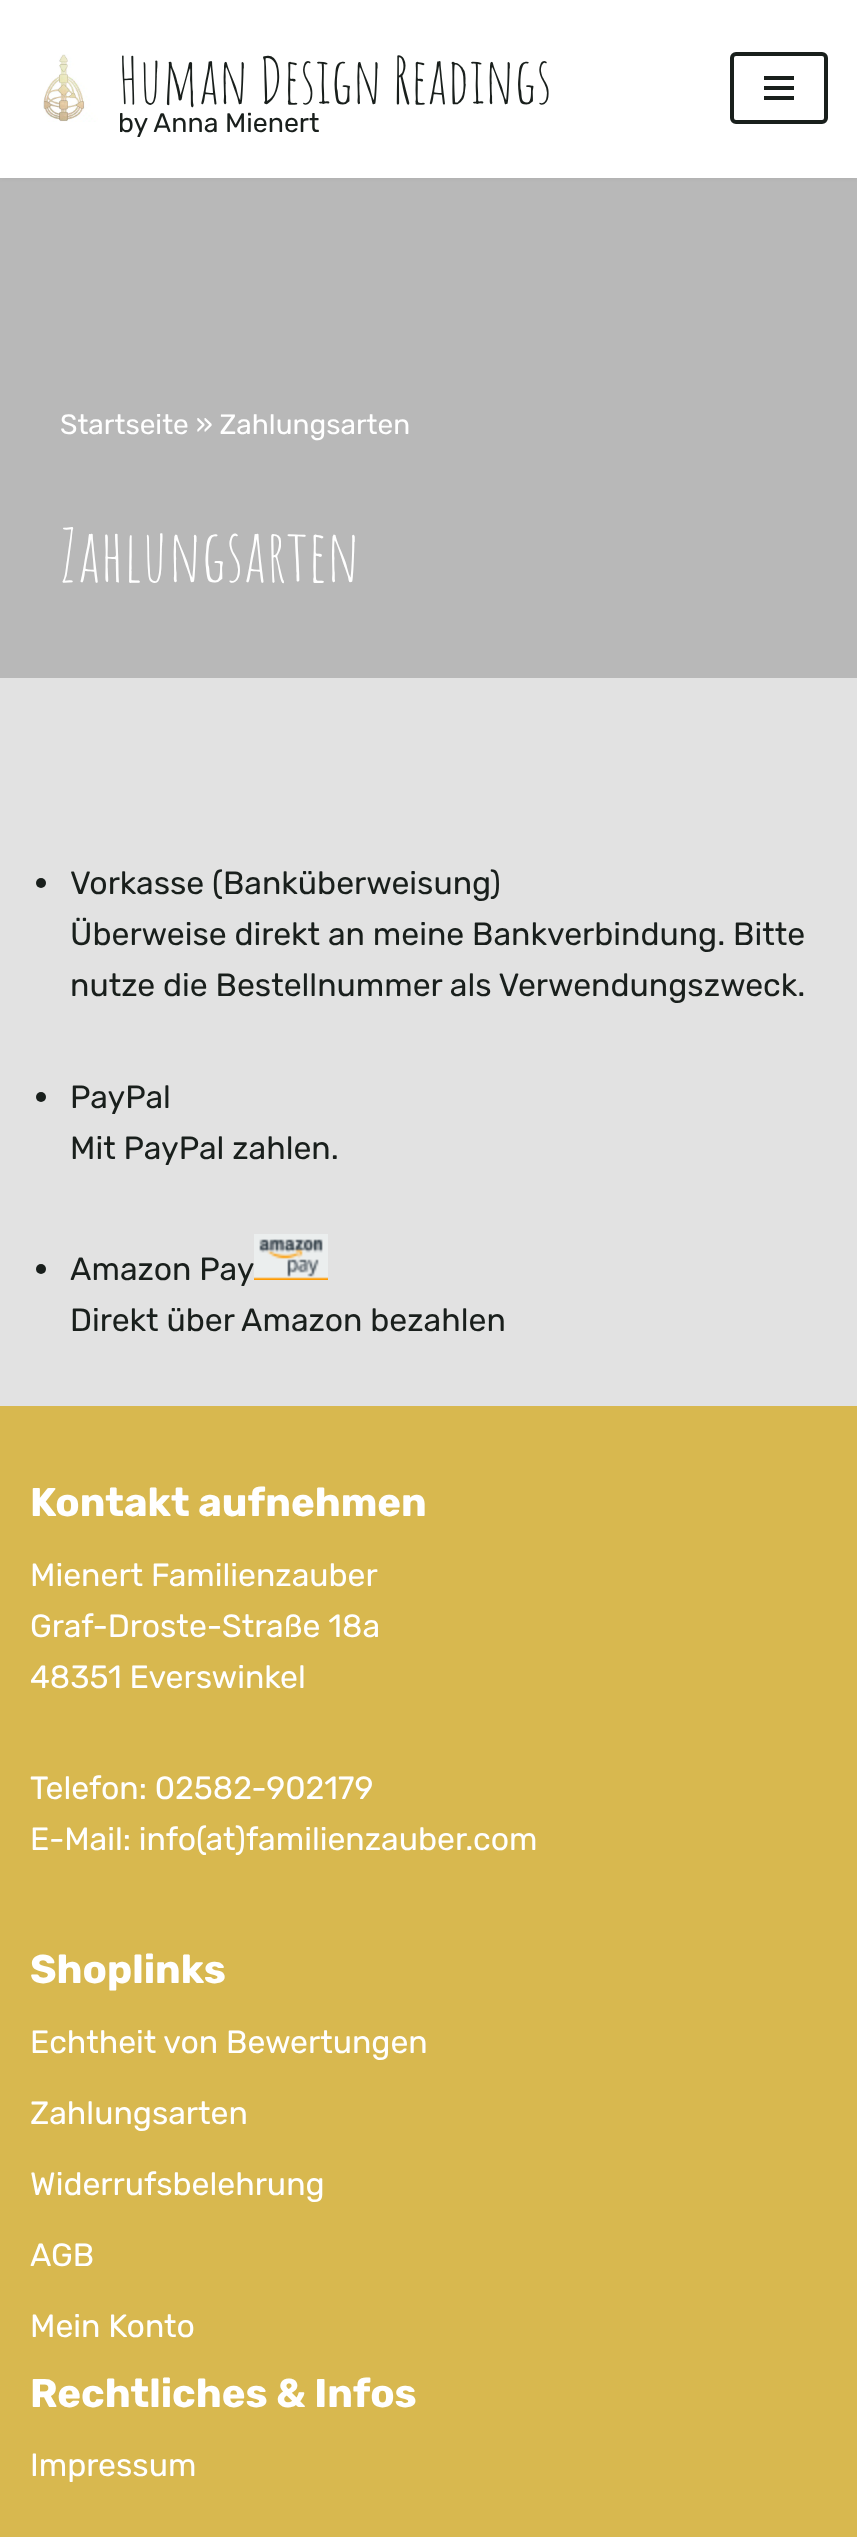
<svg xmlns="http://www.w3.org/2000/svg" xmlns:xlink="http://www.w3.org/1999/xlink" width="857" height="2537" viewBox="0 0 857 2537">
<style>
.cls-1{font:64px Amatic SC;fill:#191f1c}
.cls-2{font:300 26.75px Rubik;fill:#191f1c}
.cls-3{font:300 28px Rubik;fill:#ffffff}
.cls-4{font:72px Amatic SC;fill:#ffffff}
.cls-5{font:300 32px Rubik;fill:#191f1c}
.cls-6{font:300 40px 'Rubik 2';fill:#ffffff}
.cls-7{font:300 32px Rubik;fill:#ffffff}
</style>
<rect width="100%" height="100%" fill="#e2e2e2"/>
<rect fill="#b8b8b8" x="0" y="178" width="857" height="500"/>
<rect fill="#000000" fill-opacity="0.1" filter="blur(3px)" x="0" y="-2" width="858" height="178"/>
<rect fill="#ffffff" x="0" y="0" width="857" height="178"/>
<image xlink:href="image0.png" x="43" y="54" width="55" height="68"/>
<rect fill="none" stroke="#191f1c" stroke-width="4" x="732" y="54" width="94" height="68" rx="4"/>
<rect fill="#191f1c" x="764" y="76" width="30" height="4"/>
<rect fill="#191f1c" x="764" y="86" width="30" height="4"/>
<rect fill="#191f1c" x="764" y="96" width="30" height="4"/>
<circle fill="#191f1c" cx="41" cy="883" r="5"/>
<circle fill="#191f1c" cx="41" cy="1097" r="5"/>
<circle fill="#191f1c" cx="41" cy="1269" r="5"/>
<image xlink:href="image1.png" x="254" y="1234" width="74" height="46"/>
<rect fill="#d8b84f" x="0" y="1406" width="857" height="1131"/>
<text class="cls-1" x="118" y="104">Human Design Readings</text>
<text class="cls-2" x="118" y="132">by Anna Mienert</text>
<text class="cls-3" x="60" y="434">Startseite » Zahlungsarten</text>
<text class="cls-4" x="60" y="582">Zahlungsarten</text>
<text class="cls-5"><tspan x="70" y="894">Vorkasse (Banküberweisung)</tspan><tspan x="70" y="945">Überweise direkt an meine Bankverbindung. Bitte</tspan><tspan x="70" y="996">nutze die Bestellnummer als Verwendungszweck.</tspan></text>
<text class="cls-5"><tspan x="70" y="1108">PayPal</tspan><tspan x="70" y="1159">Mit PayPal zahlen.</tspan></text>
<text class="cls-5"><tspan x="70" y="1280">Amazon Pay</tspan><tspan x="70" y="1331">Direkt über Amazon bezahlen</tspan></text>
<text class="cls-6" x="30" y="1516">Kontakt aufnehmen</text>
<text class="cls-7"><tspan x="30" y="1586">Mienert Familienzauber</tspan><tspan x="30" y="1637">Graf-Droste-Straße 18a</tspan><tspan x="30" y="1688">48351 Everswinkel</tspan></text>
<text class="cls-7"><tspan x="30" y="1799">Telefon: 02582-902179</tspan><tspan x="30" y="1850">E-Mail: info(at)familienzauber.com</tspan></text>
<text class="cls-6" x="30" y="1983">Shoplinks</text>
<text class="cls-7" x="30" y="2053">Echtheit von Bewertungen</text>
<text class="cls-7" x="30" y="2124">Zahlungsarten</text>
<text class="cls-7" x="30" y="2195">Widerrufsbelehrung</text>
<text class="cls-7" x="30" y="2266">AGB</text>
<text class="cls-7" x="30" y="2337">Mein Konto</text>
<text class="cls-6" x="30" y="2407">Rechtliches &amp; Infos</text>
<text class="cls-7" x="30" y="2476">Impressum</text>
</svg>
